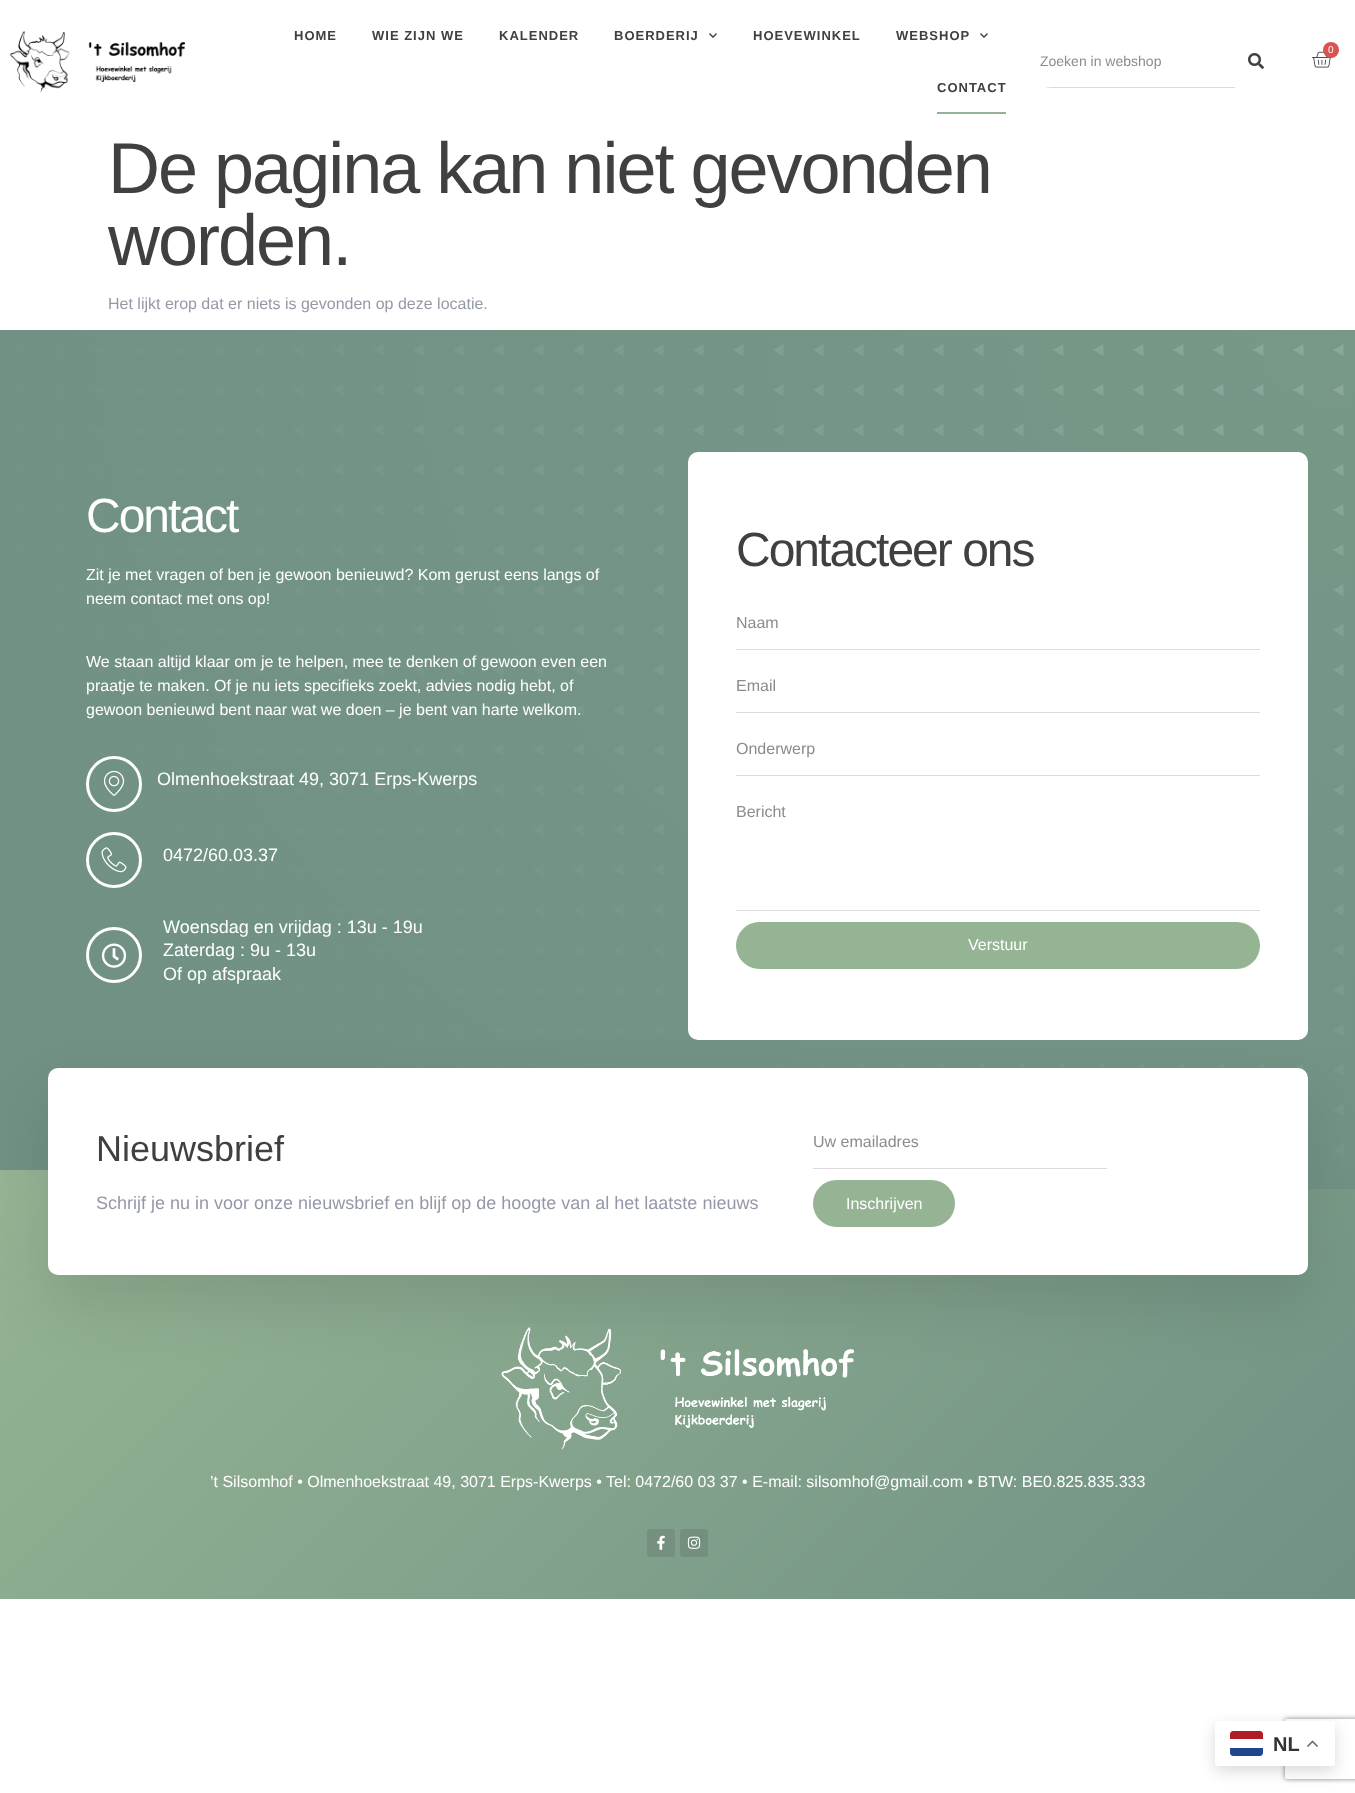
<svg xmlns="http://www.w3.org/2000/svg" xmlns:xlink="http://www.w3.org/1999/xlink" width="1355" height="1793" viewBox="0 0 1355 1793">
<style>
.cls-1{font:bold 13px Liberation Sans;letter-spacing:1px;fill:#404040}
.cls-2{font:10px Liberation Sans;fill:#ffffff}
.cls-3{font:14px Liberation Sans;fill:#8c8c8c}
.cls-4{font:72px Liberation Sans;letter-spacing:-2px;fill:#404040}
.cls-5{font:16px Liberation Sans;fill:#9599a7}
.cls-6{font:48px Liberation Sans;letter-spacing:-2px;fill:#ffffff}
.cls-7{font:16px Liberation Sans;fill:#ffffff}
.cls-8{font:18px Liberation Sans;fill:#ffffff}
.cls-9{font:48px Liberation Sans;letter-spacing:-2px;fill:#404040}
.cls-10{font:16px Liberation Sans;fill:#8c8c8c}
.cls-11{font:36px Liberation Sans;fill:#404040}
.cls-12{font:18px Liberation Sans;fill:#9599a7}
.cls-13{font:bold 20px Liberation Sans;fill:#333333}
</style>
<defs>
<clipPath id="clip1"><rect x="1026" y="36" width="251" height="52" rx="26"/></clipPath>
<radialGradient id="g1" gradientUnits="userSpaceOnUse" cx="0" cy="0" r="1" gradientTransform="matrix(1916 0 0 1471 1355 330)"><stop offset="0" stop-color="#709184" stop-opacity="0.8"/><stop offset="0.75" stop-color="#709184"/></radialGradient>
<clipPath id="clip2"><path d="M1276 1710H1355V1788H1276ZM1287 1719H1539C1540 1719 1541 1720 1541 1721V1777C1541 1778 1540 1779 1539 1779H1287C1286 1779 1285 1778 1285 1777V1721C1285 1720 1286 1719 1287 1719Z" clip-rule="evenodd"/></clipPath>
<linearGradient id="g2" gradientUnits="userSpaceOnUse" x1="334" y1="836" x2="1021" y2="1523"><stop offset="0" stop-color="#95b494"/><stop offset="1" stop-color="#709184"/></linearGradient>
<linearGradient id="g3" gradientUnits="userSpaceOnUse" x1="236" y1="953" x2="1119" y2="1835"><stop offset="0" stop-color="#95b494"/><stop offset="1" stop-color="#709184"/></linearGradient>
</defs>
<rect width="100%" height="100%" fill="#ffffff"/>
<image xlink:href="image0.png" x="10" y="31" width="175" height="62"/>
<image xlink:href="image1.png" x="709" y="33" width="8" height="5"/>
<image xlink:href="image1.png" x="980" y="33" width="8" height="5"/>
<rect fill="#95b494" x="937" y="112" width="69" height="2"/>
<image xlink:href="image2.png" x="1311" y="51" width="21" height="17"/>
<circle fill="#d9534f" cx="1331" cy="50" r="8"/>
<g clip-path="url(#clip1)">
<rect fill="#dcdcde" x="1045" y="87" width="190" height="1"/>
</g>
<image xlink:href="image3.png" x="1248" y="53" width="16" height="16"/>
<rect fill="#95b494" x="0" y="330" width="1355" height="840"/>
<image xlink:href="image4.png" x="13" y="344" width="1331" height="812"/>
<rect fill="url(#g1)" x="0" y="330" width="1355" height="840"/>
<circle fill="none" stroke="#ffffff" stroke-width="3" cx="114" cy="784" r="26.5"/>
<image xlink:href="image5.png" x="103" y="770" width="22" height="26"/>
<circle fill="none" stroke="#ffffff" stroke-width="3" cx="114" cy="860" r="26.5"/>
<image xlink:href="image6.png" x="101" y="847" width="26" height="26"/>
<circle fill="none" stroke="#ffffff" stroke-width="3" cx="114" cy="955" r="26.5"/>
<image xlink:href="image7.png" x="101" y="943" width="26" height="25"/>
<rect fill="#ffffff" x="688" y="452" width="620" height="588" rx="10"/>
<rect fill="#dcdcde" x="736" y="649" width="524" height="1"/>
<rect fill="#dcdcde" x="736" y="712" width="524" height="1"/>
<rect fill="#dcdcde" x="736" y="775" width="524" height="1"/>
<rect fill="#dcdcde" x="736" y="910" width="524" height="1"/>
<rect fill="#95b494" x="736" y="922" width="524" height="47" rx="23.5"/>
<g clip-path="url(#clip2)">
<rect fill="#808080" filter="blur(2.5px)" x="1285" y="1719" width="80" height="60" rx="2"/>
</g>
<rect fill="url(#g2)" x="0" y="1170" width="1355" height="19"/>
<rect fill="url(#g3)" x="0" y="1189" width="1355" height="410"/>
<image xlink:href="image8.png" x="501" y="1327" width="353" height="123"/>
<rect fill="#000000" fill-opacity="0.1" filter="blur(30px)" x="48" y="1098" width="1260" height="207" rx="10"/>
<rect fill="#ffffff" x="48" y="1068" width="1260" height="207" rx="10"/>
<rect fill="#dcdcde" x="813" y="1168" width="294" height="1"/>
<rect fill="#95b494" x="813" y="1180" width="142" height="47" rx="23.5"/>
<rect fill="#75907e" x="647" y="1529" width="28" height="28" rx="3"/>
<image xlink:href="image9.png" x="657" y="1535" width="8" height="15"/>
<rect fill="#748f7e" x="680" y="1529" width="28" height="28" rx="3"/>
<image xlink:href="image10.png" x="687" y="1536" width="14" height="13"/>
<rect fill="#000000" fill-opacity="0.15" filter="blur(7.5px)" x="1215" y="1726" width="120" height="45" rx="2"/>
<rect fill="#ffffff" x="1215" y="1721" width="120" height="45" rx="2"/>
<path fill="#21468b" d="M1230 1748H1263V1753C1263 1754.5 1261.5 1756 1260 1756H1233C1231.5 1756 1230 1754.5 1230 1753Z"/>
<path fill="#ae1c28" d="M1233 1731H1260C1261.5 1731 1263 1732.5 1263 1734V1739H1230V1734C1230 1732.5 1231.5 1731 1233 1731Z"/>
<image xlink:href="image11.png" x="1307" y="1740" width="11" height="7"/>
<text class="cls-1" x="294" y="40">HOME</text>
<text class="cls-1" x="372" y="40">WIE ZIJN WE</text>
<text class="cls-1" x="499" y="40">KALENDER</text>
<text class="cls-1" x="614" y="40">BOERDERIJ</text>
<text class="cls-1" x="753" y="40">HOEVEWINKEL</text>
<text class="cls-1" x="896" y="40">WEBSHOP</text>
<text class="cls-1" x="937" y="92">CONTACT</text>
<text class="cls-2" x="1328" y="53">0</text>
<text class="cls-3" x="1040" y="66">Zoeken in webshop</text>
<text class="cls-4"><tspan x="108" y="193">De pagina kan niet gevonden</tspan><tspan x="108" y="265">worden.</tspan></text>
<text class="cls-5" x="108" y="309">Het lijkt erop dat er niets is gevonden op deze locatie.</text>
<text class="cls-6" x="86" y="532">Contact</text>
<text class="cls-7"><tspan x="86" y="580">Zit je met vragen of ben je gewoon benieuwd? Kom gerust eens langs of</tspan><tspan x="86" y="604">neem contact met ons op!</tspan></text>
<text class="cls-7"><tspan x="86" y="667">We staan altijd klaar om je te helpen, mee te denken of gewoon even een</tspan><tspan x="86" y="691">praatje te maken. Of je nu iets specifieks zoekt, advies nodig hebt, of</tspan><tspan x="86" y="715">gewoon benieuwd bent naar wat we doen – je bent van harte welkom.</tspan></text>
<text class="cls-8" x="157" y="785">Olmenhoekstraat 49, 3071 Erps-Kwerps</text>
<text class="cls-8" x="163" y="861">0472/60.03.37</text>
<text class="cls-8"><tspan x="163" y="933">Woensdag en vrijdag : 13u - 19u</tspan><tspan x="163" y="956">Zaterdag : 9u - 13u</tspan><tspan x="163" y="980">Of op afspraak</tspan></text>
<text class="cls-9" x="736" y="566">Contacteer ons</text>
<text class="cls-10" x="736" y="628">Naam</text>
<text class="cls-10" x="736" y="691">Email</text>
<text class="cls-10" x="736" y="754">Onderwerp</text>
<text class="cls-10" x="736" y="817">Bericht</text>
<text class="cls-7" x="968" y="950">Verstuur</text>
<text class="cls-11" x="96" y="1161">Nieuwsbrief</text>
<text class="cls-12" x="96" y="1209">Schrijf je nu in voor onze nieuwsbrief en blijf op de hoogte van al het laatste nieuws</text>
<text class="cls-10" x="813" y="1147">Uw emailadres</text>
<text class="cls-7" x="846" y="1209">Inschrijven</text>
<text class="cls-7" x="210" y="1487">’t Silsomhof • Olmenhoekstraat 49, 3071 Erps-Kwerps • Tel: 0472/60 03 37 • E-mail: silsomhof@gmail.com • BTW: BE0.825.835.333</text>
<text class="cls-13" x="1273" y="1751">NL</text>
</svg>
